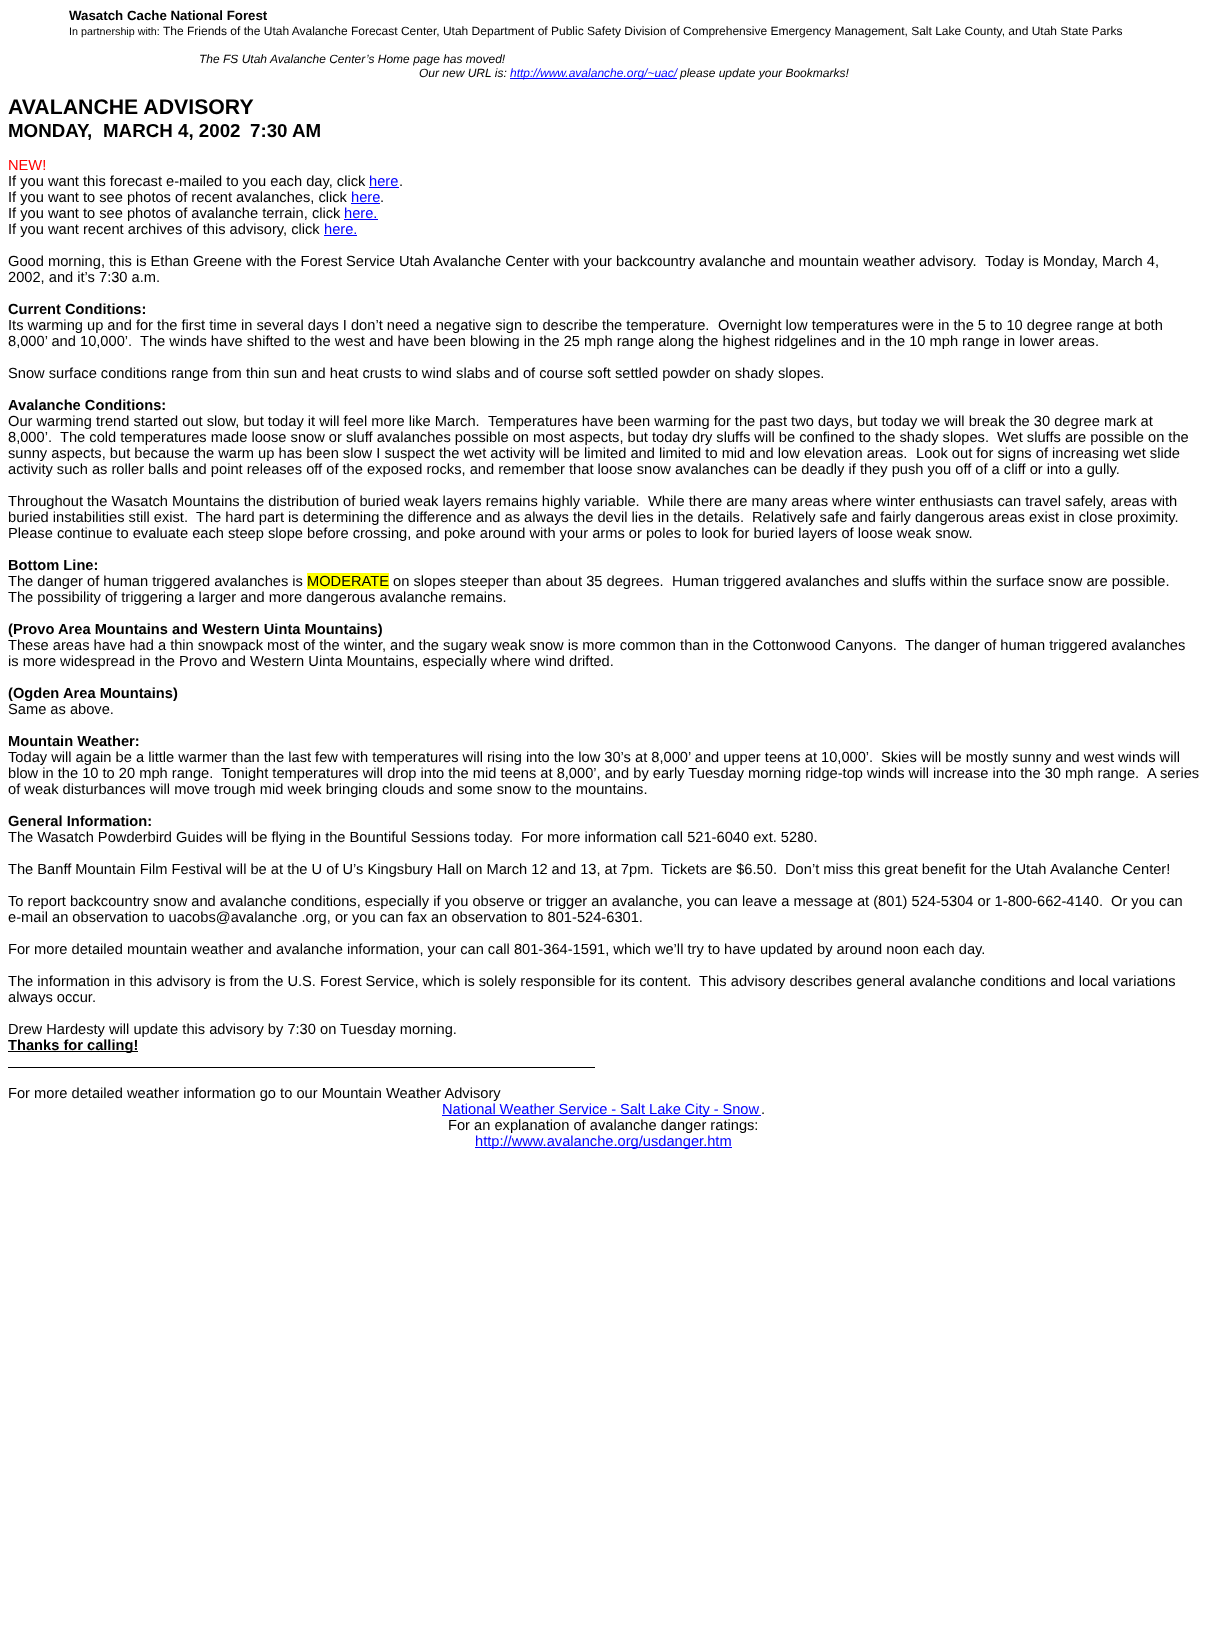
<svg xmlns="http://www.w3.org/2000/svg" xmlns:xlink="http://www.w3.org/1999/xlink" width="1207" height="1639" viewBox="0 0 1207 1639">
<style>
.cls-1{font:bold 13.3px Liberation Sans;fill:#000000}
.cls-2{font:10.75px Liberation Sans;fill:#000000}
.cls-3{font:12px Liberation Sans;fill:#000000}
.cls-4{font:italic 12px Liberation Sans;fill:#000000}
.cls-5{font:italic 12px Liberation Sans;fill:#0000ff}
.cls-6{font:bold 21.25px Liberation Sans;fill:#000000}
.cls-7{font:bold 18.75px Liberation Sans;fill:#000000}
.cls-8{font:14.67px Liberation Sans;fill:#ff0000}
.cls-9{font:14.67px Liberation Sans;fill:#000000}
.cls-10{font:14.67px Liberation Sans;fill:#0000ff}
.cls-11{font:bold 14.67px Liberation Sans;fill:#000000}
</style>
<rect width="100%" height="100%" fill="#ffffff"/>
<rect fill="#0000ff" x="510" y="78" width="167" height="1"/>
<rect fill="#0000ff" x="369" y="187" width="30" height="1"/>
<rect fill="#0000ff" x="351" y="203" width="29" height="1"/>
<rect fill="#0000ff" x="344" y="219" width="34" height="1"/>
<rect fill="#0000ff" x="324" y="235" width="33" height="1"/>
<rect fill="#ffff00" x="307" y="573" width="82" height="16"/>
<rect fill="#000000" x="8" y="1051" width="130" height="1"/>
<rect fill="#000000" x="8" y="1067" width="587" height="1"/>
<rect fill="#0000ff" x="442" y="1115" width="319" height="1"/>
<rect fill="#0000ff" x="475" y="1147" width="257" height="1"/>
<text class="cls-1" x="69" y="20">Wasatch Cache National Forest</text>
<text class="cls-2" x="69" y="35">In partnership with:</text>
<text class="cls-3" x="163" y="35">The Friends of the Utah Avalanche Forecast Center, Utah Department of Public Safety Division of Comprehensive Emergency Management, Salt Lake County, and Utah State Parks</text>
<text class="cls-4" x="199" y="63">The FS Utah</text>
<text class="cls-4" x="270" y="63">Avalanche Center</text>
<text class="cls-4" x="366" y="63">’s Home page has moved!</text>
<text class="cls-4" x="419" y="77">Our new URL is:</text>
<text class="cls-5" x="510" y="77">http://www.avalanche.org/~uac/</text>
<text class="cls-4" x="680" y="77">please update your Bookmarks!</text>
<text class="cls-6" x="8" y="114">AVALANCHE ADVISORY</text>
<text class="cls-7" x="8" y="137">MONDAY</text>
<text class="cls-7" x="87" y="137">,</text>
<text class="cls-7" x="103" y="137">MARCH 4, 2002</text>
<text class="cls-7" x="250" y="137">7:30 AM</text>
<text class="cls-8" x="8" y="170">NEW!</text>
<text class="cls-9" x="8" y="186">If you want this forecast e-mailed to you each day, click</text>
<text class="cls-10" x="369" y="186">here</text>
<text class="cls-9" x="399" y="186">.</text>
<text class="cls-9" x="8" y="202">If you want to see photos of recent avalanches, click</text>
<text class="cls-10" x="351" y="202">here</text>
<text class="cls-9" x="380" y="202">.</text>
<text class="cls-9" x="8" y="218">If you want to see photos of avalanche terrain, click</text>
<text class="cls-10" x="344" y="218">here.</text>
<text class="cls-9" x="8" y="234">If you want recent archives of this advisory, click</text>
<text class="cls-10" x="324" y="234">here.</text>
<text class="cls-9" x="8" y="266">Good morning, this is Ethan Greene with the Forest Service Utah</text>
<text class="cls-9" x="433" y="266">Avalanche Center with your backcountry avalanche and mountain weather advisory.</text>
<text class="cls-9" x="985" y="266">Today is Monday, March 4,</text>
<text class="cls-9" x="8" y="282">2002, and it’s 7:30 a.m.</text>
<text class="cls-11" x="8" y="314">Current Conditions:</text>
<text class="cls-9" x="8" y="330">Its warming up and for the first time in several days I don’t need a negative sign to describe the temperature.</text>
<text class="cls-9" x="718" y="330">Overnight low temperatures were in the 5 to 10 degree range at both</text>
<text class="cls-9" x="8" y="346">8,000’ and 10,000’.</text>
<text class="cls-9" x="140" y="346">The winds have shifted to the west and have been blowing in the 25 mph range along the highest ridgelines and in the 10 mph range in lower areas.</text>
<text class="cls-9" x="8" y="378">Snow surface conditions range from thin sun and heat crusts to wind slabs and of course soft settled powder on shady slopes.</text>
<text class="cls-11" x="8" y="410">Avalanche Conditions:</text>
<text class="cls-9" x="8" y="426">Our warming trend started out slow, but today it will feel more like March.</text>
<text class="cls-9" x="488" y="426">Temperatures have been warming for the past two days, but today we will break the 30 degree mark at</text>
<text class="cls-9" x="8" y="442">8,000’.</text>
<text class="cls-9" x="60" y="442">The cold temperatures made loose snow or sluff avalanches possible on most aspects, but today dry sluffs will be confined to the shady slopes.</text>
<text class="cls-9" x="997" y="442">Wet sluffs are possible on the</text>
<text class="cls-9" x="8" y="458">sunny aspects, but because the warm up has been slow I suspect the wet activity will be limited and limited to mid and low elevation areas.</text>
<text class="cls-9" x="916" y="458">Look out for signs of increasing wet slide</text>
<text class="cls-9" x="8" y="474">activity such as roller balls and point releases off of the exposed rocks, and remember that loose snow avalanches can be deadly if they push you off of a cliff or into a gully.</text>
<text class="cls-9" x="8" y="506">Throughout the Wasatch Mountains the distribution of buried weak layers remains highly variable.</text>
<text class="cls-9" x="648" y="506">While there are many areas where winter enthusiasts can travel safely, areas with</text>
<text class="cls-9" x="8" y="522">buried instabilities still exist.</text>
<text class="cls-9" x="196" y="522">The hard part is determining the difference and as always the devil lies in the details.</text>
<text class="cls-9" x="752" y="522">Relatively safe and fairly dangerous areas exist in close proximity.</text>
<text class="cls-9" x="8" y="538">Please continue to evaluate each steep slope before crossing, and poke around with your arms or poles to look for buried layers of loose weak snow.</text>
<text class="cls-11" x="8" y="570">Bottom Line:</text>
<text class="cls-9" x="8" y="586">The danger of human triggered avalanches is</text>
<text class="cls-9" x="307" y="586">MODERATE on slopes steeper than about 35 degrees.</text>
<text class="cls-9" x="672" y="586">Human triggered avalanches and sluffs within the surface snow are possible.</text>
<text class="cls-9" x="8" y="602">The possibility of triggering a larger and more dangerous avalanche remains.</text>
<text class="cls-11" x="8" y="634">(Provo</text>
<text class="cls-11" x="58" y="634">Area Mountains and Western Uinta Mountains)</text>
<text class="cls-9" x="8" y="650">These areas have had a thin snowpack most of the winter, and the sugary weak snow is more common than in the Cottonwood Canyons.</text>
<text class="cls-9" x="905" y="650">The danger of human triggered avalanches</text>
<text class="cls-9" x="8" y="666">is more widespread in the Provo and Western Uinta Mountains, especially where wind drifted.</text>
<text class="cls-11" x="8" y="698">(Ogden</text>
<text class="cls-11" x="63" y="698">Area Mountains)</text>
<text class="cls-9" x="8" y="714">Same as above.</text>
<text class="cls-11" x="8" y="746">Mountain Weather:</text>
<text class="cls-9" x="8" y="762">Today will again be a little warmer than the last few with temperatures will rising into the low 30’s at 8,000’ and upper teens at 10,000’.</text>
<text class="cls-9" x="881" y="762">Skies will be mostly sunny and west winds will</text>
<text class="cls-9" x="8" y="778">blow in the 10 to 20 mph range.</text>
<text class="cls-9" x="221" y="778">Tonight temperatures will drop into the mid teens at 8,000’, and by early Tuesday morning ridge-top winds will increase into the 30 mph range.</text>
<text class="cls-9" x="1147" y="778">A series</text>
<text class="cls-9" x="8" y="794">of weak disturbances will move trough mid week bringing clouds and some snow to the mountains.</text>
<text class="cls-11" x="8" y="826">General Information:</text>
<text class="cls-9" x="8" y="842">The Wasatch Powderbird Guides will be flying in the Bountiful Sessions today.</text>
<text class="cls-9" x="521" y="842">For more information call 521-6040 ext. 5280.</text>
<text class="cls-9" x="8" y="874">The Banff Mountain Film Festival will be at the U of U’s Kingsbury Hall on March 12 and 13, at 7pm.</text>
<text class="cls-9" x="661" y="874">Tickets are $6.50.</text>
<text class="cls-9" x="785" y="874">Don’t miss this great benefit for the Utah</text>
<text class="cls-9" x="1050" y="874">Avalanche Center!</text>
<text class="cls-9" x="8" y="906">To report backcountry snow and avalanche conditions, especially if you observe or trigger an avalanche, you can leave a message at (801) 524-5304 or 1-800-662-4140.</text>
<text class="cls-9" x="1111" y="906">Or you can</text>
<text class="cls-9" x="8" y="922">e-mail an observation to uacobs@avalanche .org, or you can fax an observation to 801-524-6301.</text>
<text class="cls-9" x="8" y="954">For more detailed mountain weather and avalanche information, your can call 801-364-1591, which we’ll try to have updated by around noon each day.</text>
<text class="cls-9" x="8" y="986">The information in this advisory is from the U.S. Forest Service, which is solely responsible for its content.</text>
<text class="cls-9" x="699" y="986">This advisory describes general avalanche conditions and local variations</text>
<text class="cls-9" x="8" y="1002">always occur.</text>
<text class="cls-9" x="8" y="1034">Drew Hardesty will update this advisory by 7:30 on Tuesday morning.</text>
<text class="cls-11" x="8" y="1050">Thanks for calling!</text>
<text class="cls-9" x="8" y="1098">For more detailed weather information go to our Mountain Weather Advisory</text>
<text class="cls-10" x="442" y="1114" word-spacing="-0.25">National Weather Service - Salt Lake City - Snow</text>
<text class="cls-9" x="761" y="1114">.</text>
<text class="cls-9" x="448" y="1130">For an explanation of avalanche danger ratings:</text>
<text class="cls-10" x="475" y="1146">http://www.avalanche.org/usdanger.htm</text>
</svg>
